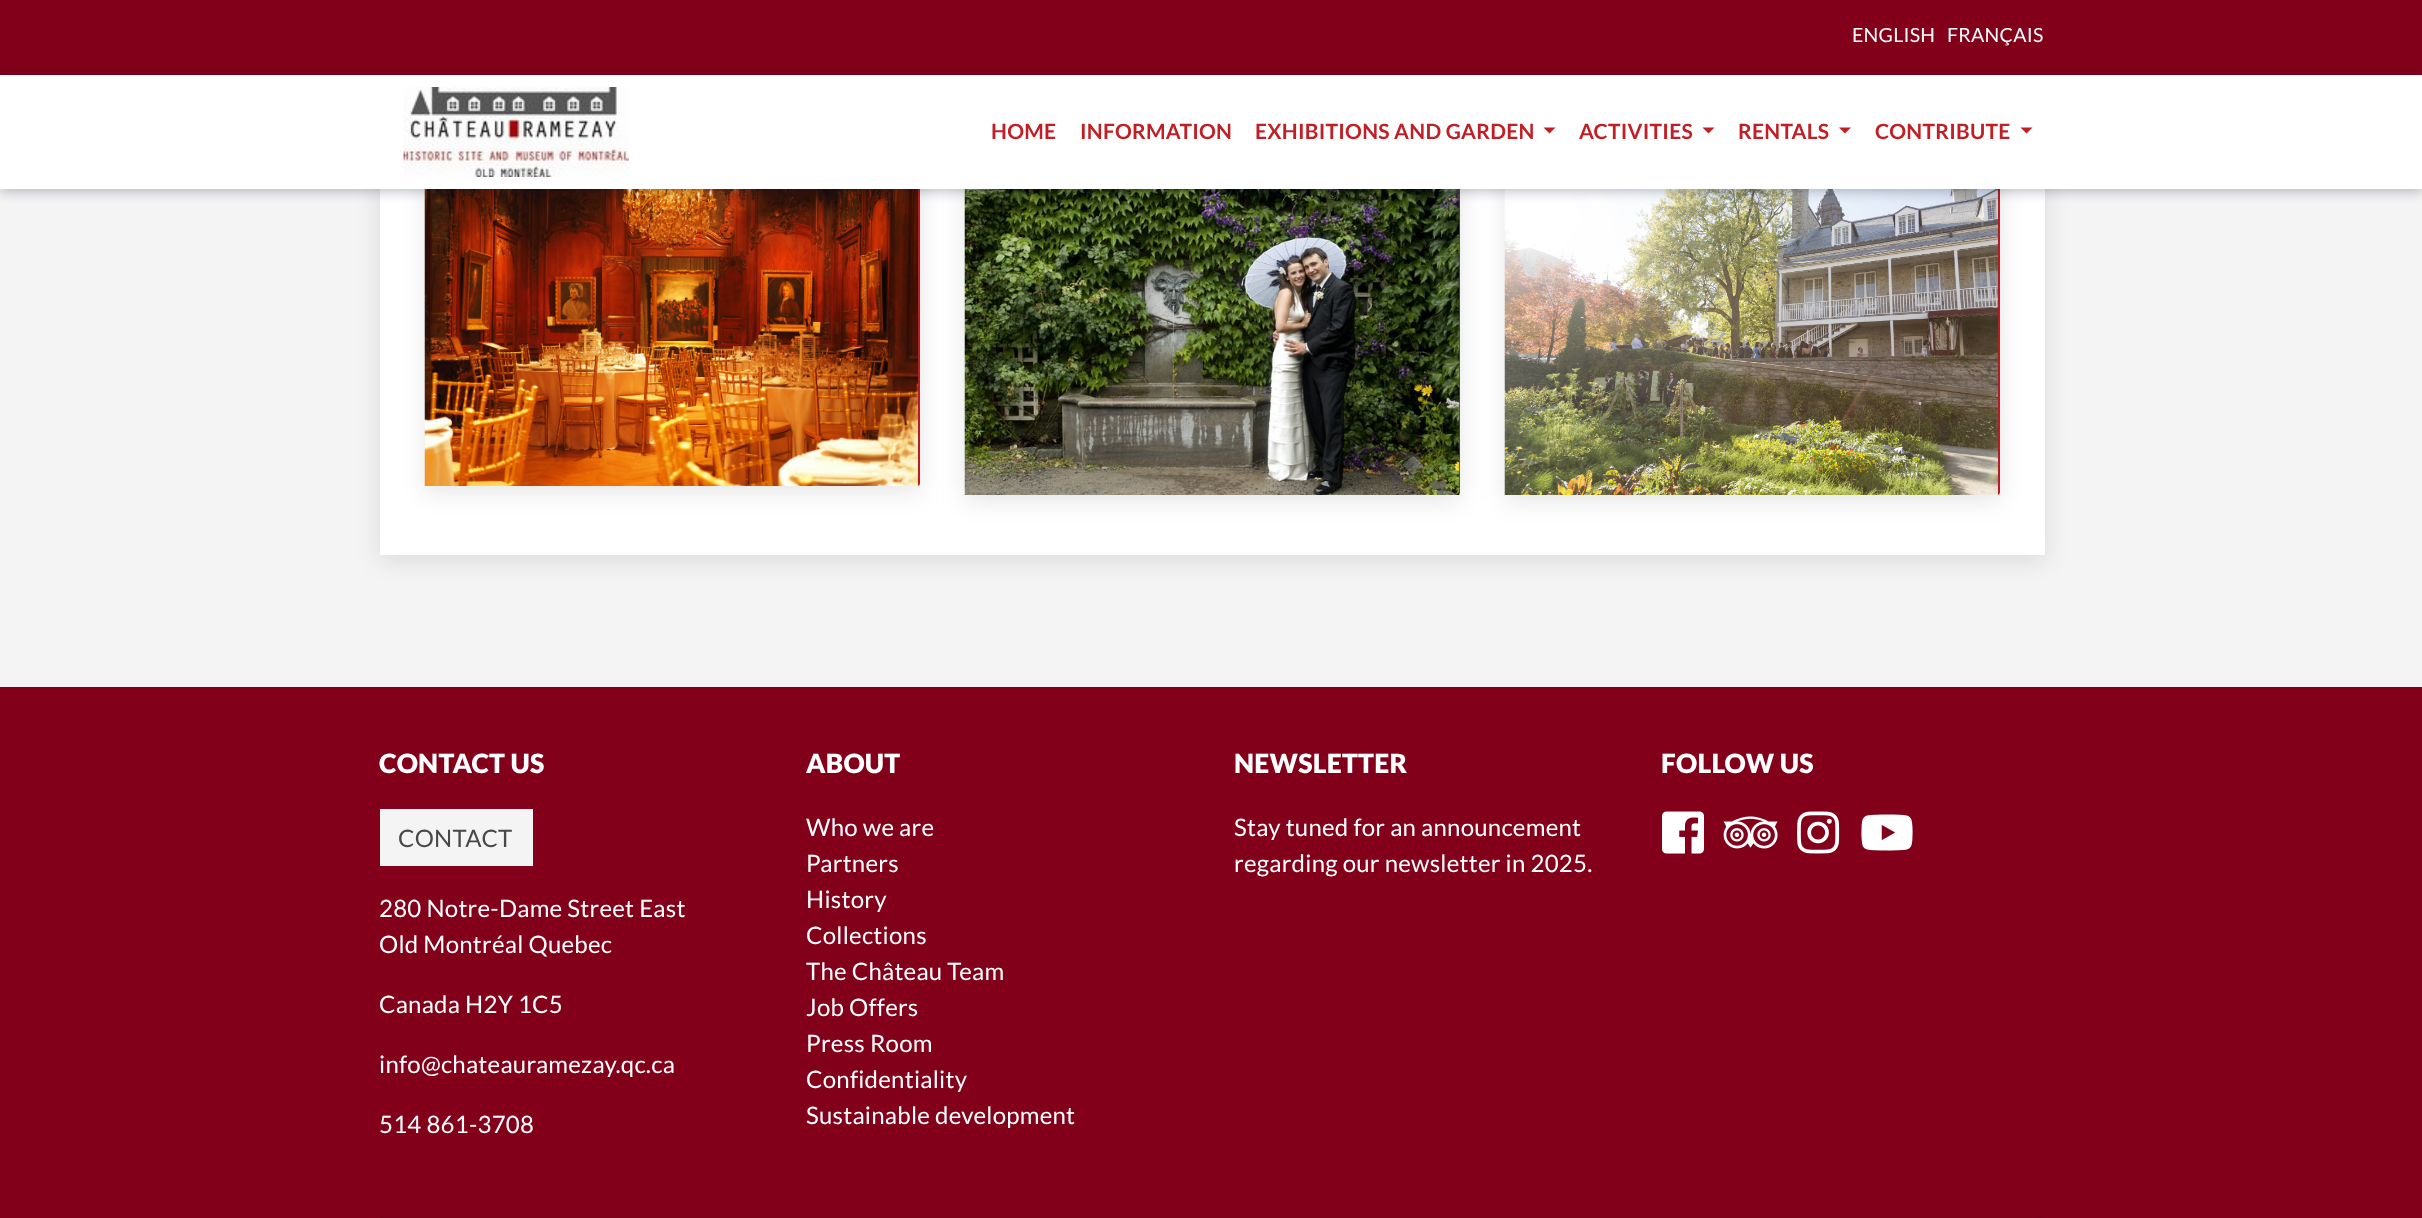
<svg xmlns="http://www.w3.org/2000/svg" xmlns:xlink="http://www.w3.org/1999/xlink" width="2422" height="1218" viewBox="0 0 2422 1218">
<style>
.cls-1{font:19.5px Lato;letter-spacing:0.25px;fill:#ffffff}
.cls-2{font:bold 21px Lato;letter-spacing:0.25px;fill:#c01f25}
.cls-3{font:900 26.5px Lato;letter-spacing:0.25px;fill:#ffffff}
.cls-4{font:24px Lato;letter-spacing:0.25px;fill:#484848}
.cls-5{font:24px Lato;letter-spacing:0.25px;fill:#ffffff}
</style>
<defs>
<clipPath id="clip1"><rect x="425" y="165" width="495" height="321"/></clipPath>
<clipPath id="clip2"><rect x="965" y="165" width="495" height="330"/></clipPath>
<clipPath id="clip3"><rect x="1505" y="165" width="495" height="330"/></clipPath>
</defs>
<rect width="100%" height="100%" fill="#f4f4f4"/>
<rect fill="#000000" fill-opacity="0.1" filter="blur(12px)" x="380" y="23" width="1665" height="538"/>
<rect fill="#ffffff" x="380" y="189" width="1665" height="366"/>
<rect fill="#000000" fill-opacity="0.1" filter="blur(12px)" x="425" y="83" width="495" height="409" rx="3"/>
<rect fill="#c01f25" x="425" y="77" width="495" height="409" rx="3"/>
<g clip-path="url(#clip1)">
<rect fill="#000000" fill-opacity="0.1" filter="blur(12px)" x="425" y="171" width="493" height="321"/>
</g>
<image xlink:href="image0.png" x="424" y="189" width="494" height="297"/>
<rect fill="#000000" fill-opacity="0.1" filter="blur(12px)" x="965" y="83" width="495" height="418" rx="3"/>
<rect fill="#c01f25" x="965" y="77" width="495" height="418" rx="3"/>
<g clip-path="url(#clip2)">
<rect fill="#000000" fill-opacity="0.1" filter="blur(12px)" x="965" y="171" width="495" height="330"/>
</g>
<image xlink:href="image1.png" x="964" y="189" width="496" height="306"/>
<rect fill="#000000" fill-opacity="0.1" filter="blur(12px)" x="1505" y="83" width="495" height="418" rx="3"/>
<rect fill="#c01f25" x="1505" y="77" width="495" height="418" rx="3"/>
<g clip-path="url(#clip3)">
<rect fill="#000000" fill-opacity="0.1" filter="blur(12px)" x="1505" y="171" width="493" height="330"/>
</g>
<image xlink:href="image2.png" x="1504" y="189" width="494" height="306"/>
<rect fill="#82001a" x="0" y="0" width="2422" height="75"/>
<rect fill="#000f26" fill-opacity="0.25" filter="blur(6px)" x="0" y="78" width="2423" height="114"/>
<rect fill="#ffffff" x="0" y="75" width="2422" height="114"/>
<image xlink:href="image3.png" x="403" y="87" width="226" height="90"/>
<path fill="#c01f25" d="M1543.5 127.5H1555.5L1549.5 133.5Z"/>
<path fill="#c01f25" d="M1702.5 127.5H1714.5L1708.5 133.5Z"/>
<path fill="#c01f25" d="M1839 127.5H1851L1845 133.5Z"/>
<path fill="#c01f25" d="M2020.5 127.5H2032.5L2026.5 133.5Z"/>
<rect fill="#82001a" x="0" y="687" width="2422" height="531"/>
<rect fill="#f4f4f4" x="380" y="809" width="153" height="57"/>
<image xlink:href="image4.png" x="1662" y="811" width="42" height="43"/>
<image xlink:href="image5.png" x="1723" y="816" width="55" height="33"/>
<image xlink:href="image6.png" x="1797" y="811" width="43" height="43"/>
<image xlink:href="image7.png" x="1861" y="814" width="52" height="37"/>
<rect fill="#750017" x="380" y="1217" width="1665" height="1"/>
<text class="cls-1" x="1852" y="42">ENGLISH</text>
<text class="cls-1" x="1947" y="42">FRANÇAIS</text>
<text class="cls-2" x="991" y="139">HOME</text>
<text class="cls-2" x="1080" y="139">INFORMATION</text>
<text class="cls-2" x="1255" y="139">EXHIBITIONS AND GARDEN</text>
<text class="cls-2" x="1579" y="139">ACTIVITIES</text>
<text class="cls-2" x="1738" y="139">RENTALS</text>
<text class="cls-2" x="1875" y="139">CONTRIBUTE</text>
<text class="cls-3" x="379" y="773">CONTACT US</text>
<text class="cls-4" x="398" y="847">CONTACT</text>
<text class="cls-5"><tspan x="379" y="917">280 Notre-Dame Street East</tspan><tspan x="379" y="953">Old Montréal Quebec</tspan></text>
<text class="cls-5" x="379" y="1013">Canada H2Y 1C5</text>
<text class="cls-5" x="379" y="1073">info@chateauramezay.qc.ca</text>
<text class="cls-5" x="379" y="1133">514 861-3708</text>
<text class="cls-3" x="806" y="773">ABOUT</text>
<text class="cls-5"><tspan x="806" y="836">Who we are</tspan><tspan x="806" y="872">Partners</tspan><tspan x="806" y="908">History</tspan><tspan x="806" y="944">Collections</tspan><tspan x="806" y="980">The Château Team</tspan><tspan x="806" y="1016">Job Offers</tspan><tspan x="806" y="1052">Press Room</tspan><tspan x="806" y="1088">Confidentiality</tspan><tspan x="806" y="1124">Sustainable development</tspan></text>
<text class="cls-3" x="1234" y="773">NEWSLETTER</text>
<text class="cls-5"><tspan x="1234" y="836">Stay tuned for an announcement</tspan><tspan x="1234" y="872">regarding our newsletter in 2025.</tspan></text>
<text class="cls-3" x="1661" y="773">FOLLOW US</text>
</svg>
